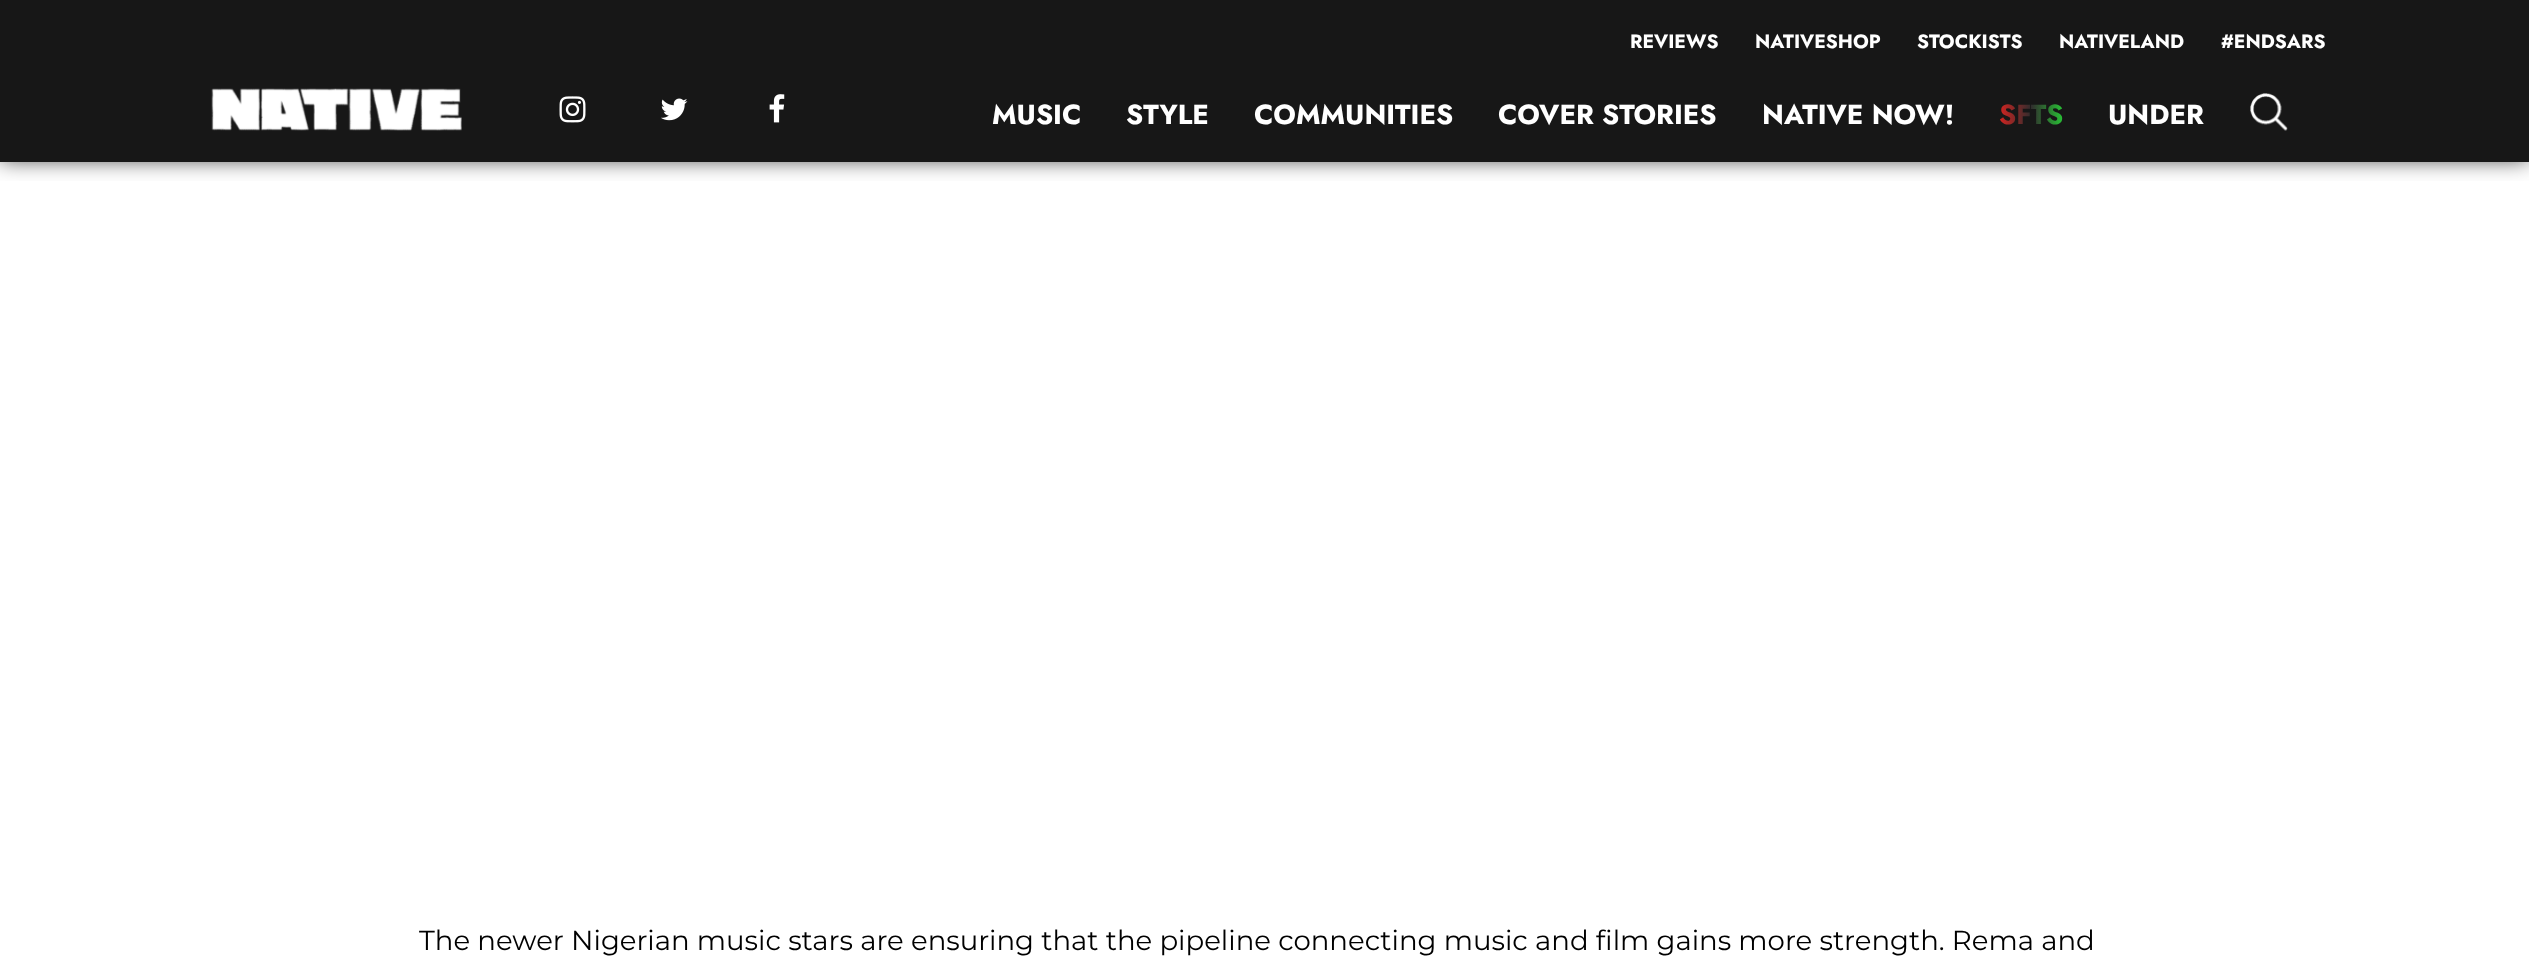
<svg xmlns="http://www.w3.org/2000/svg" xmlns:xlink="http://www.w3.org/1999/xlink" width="2529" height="961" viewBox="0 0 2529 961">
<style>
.cls-1{font:bold 19.25px Jost;fill:#ffffff}
.cls-2{font:bold 27.57px Jost;fill:#ffffff}
.cls-3{font:bold 27.57px Jost;fill:url(#g1)}
.cls-4{font:27.57px Montserrat;fill:#000000}
</style>
<defs>
<clipPath id="clip1"><rect x="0" y="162" width="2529" height="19"/></clipPath>
<linearGradient id="g1" gradientUnits="userSpaceOnUse" x1="1999" y1="115" x2="2063" y2="115"><stop offset="0" stop-color="#d42421"/><stop offset="0.5" stop-color="#302c2d"/><stop offset="1" stop-color="#28c235"/></linearGradient>
</defs>
<rect width="100%" height="100%" fill="#ffffff"/>
<rect fill="#171717" x="0" y="0" width="2529" height="162"/>
<g clip-path="url(#clip1)">
<rect fill="#000000" fill-opacity="0.8" filter="blur(11px)" x="0" y="-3" width="2529" height="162"/>
</g>
<image xlink:href="image0.png" x="211" y="88" width="251" height="43"/>
<image xlink:href="image1.png" x="559" y="96" width="27" height="27"/>
<image xlink:href="image2.png" x="661" y="98" width="27" height="23"/>
<image xlink:href="image3.png" x="769" y="94" width="16" height="29"/>
<image xlink:href="image4.png" x="2250" y="93" width="38" height="38"/>
<text class="cls-1" x="1630" y="48">REVIEWS</text>
<text class="cls-1" x="1755" y="48">NATIVESHOP</text>
<text class="cls-1" x="1917" y="48">STOCKISTS</text>
<text class="cls-1" x="2059" y="48">NATIVELAND</text>
<text class="cls-1" x="2221" y="48">#ENDSARS</text>
<text class="cls-2" x="992" y="124">MUSIC</text>
<text class="cls-2" x="1126" y="124">STYLE</text>
<text class="cls-2" x="1254" y="124">COMMUNITIES</text>
<text class="cls-2" x="1498" y="124">COVER STORIES</text>
<text class="cls-2" x="1762" y="124">NATIVE NOW!</text>
<text class="cls-3" x="1999" y="124">SFTS</text>
<text class="cls-2" x="2108" y="124">UNDER</text>
<text class="cls-4" x="419" y="950">The newer Nigerian music stars are ensuring that the pipeline connecting music and film gains more strength. Rema and</text>
</svg>
